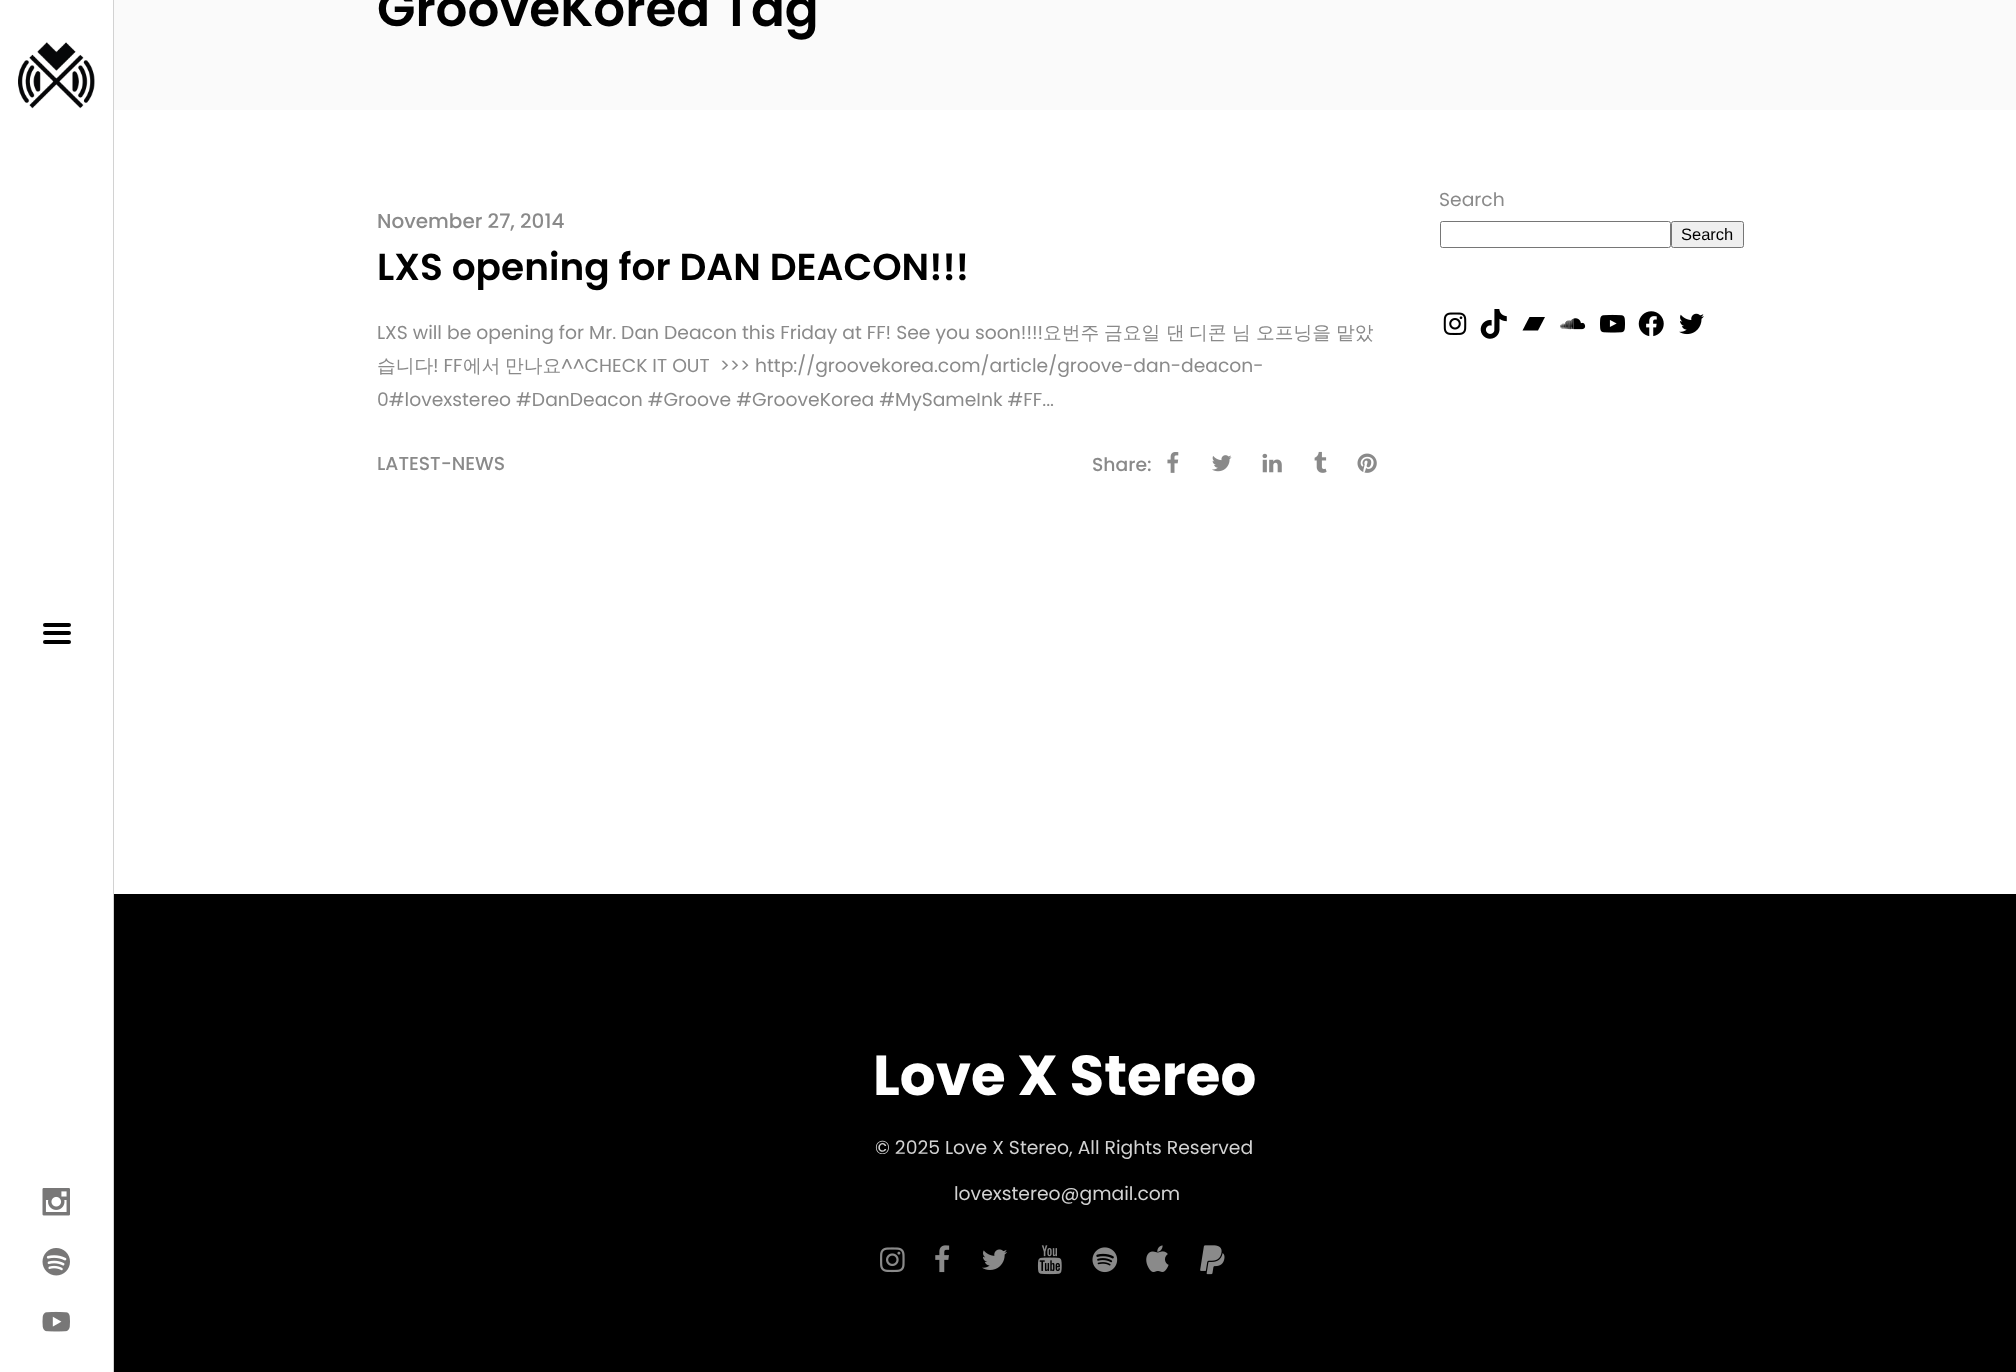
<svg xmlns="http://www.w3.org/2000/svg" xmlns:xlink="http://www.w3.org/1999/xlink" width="2016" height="1372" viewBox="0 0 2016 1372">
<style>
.cls-1{font:600 50px Poppins;fill:#000000}
.cls-2{font:500 20px Poppins;fill:#8a8a8a}
.cls-3{font:600 37.5px Poppins;fill:#000000}
.cls-4{font:18.75px Poppins;fill:#8a8a8a}
.cls-5{font:500 18.75px WenQuanYi Zen Hei;fill:#8a8a8a}
.cls-6{font:500 18.75px Poppins;fill:#8a8a8a}
.cls-7{font:16.5px Liberation Sans;fill:#000000}
.cls-8{font:bold 56.25px Poppins;fill:#ffffff}
.cls-9{font:18.75px Poppins;fill:#d2d2d2}
</style>
<rect width="100%" height="100%" fill="#ffffff"/>
<image xlink:href="image0.png" x="18" y="42" width="77" height="67"/>
<rect fill="#d2d2d2" x="113" y="0" width="1" height="1372"/>
<rect fill="#000000" x="43" y="631" width="28" height="4" rx="2"/>
<rect fill="#000000" x="43" y="623" width="28" height="4" rx="2"/>
<rect fill="#000000" x="43" y="640" width="28" height="4" rx="2"/>
<image xlink:href="image1.png" x="42" y="1188" width="28" height="28"/>
<image xlink:href="image2.png" x="42" y="1248" width="28" height="28"/>
<image xlink:href="image3.png" x="42" y="1311" width="28" height="21"/>
<rect fill="#fafafa" x="114" y="0" width="1902" height="110"/>
<image xlink:href="image4.png" x="1167" y="452" width="12" height="21"/>
<image xlink:href="image5.png" x="1212" y="455" width="20" height="17"/>
<image xlink:href="image6.png" x="1262" y="453" width="20" height="20"/>
<image xlink:href="image7.png" x="1314" y="451" width="13" height="22"/>
<image xlink:href="image8.png" x="1357" y="453" width="20" height="20"/>
<rect fill="none" stroke="#767676" x="1440.5" y="221.5" width="230" height="26" rx="2"/>
<rect fill="#efefef" stroke="#767676" x="1671.5" y="221.5" width="72" height="26" rx="2"/>
<image xlink:href="image9.png" x="1443" y="312" width="24" height="23"/>
<image xlink:href="image10.png" x="1480" y="309" width="27" height="30"/>
<path fill="#000000" d="M1538 330.5H1522.5L1529.5 317H1545L1538 330.5"/>
<image xlink:href="image11.png" x="1560" y="318" width="26" height="12"/>
<image xlink:href="image12.png" x="1600" y="314" width="25" height="19"/>
<image xlink:href="image13.png" x="1638" y="311" width="26" height="26"/>
<image xlink:href="image14.png" x="1679" y="313" width="25" height="22"/>
<rect fill="#000000" x="114" y="894" width="1902" height="478"/>
<image xlink:href="image15.png" x="880" y="1247" width="25" height="26"/>
<image xlink:href="image16.png" x="935" y="1245" width="15" height="28"/>
<image xlink:href="image17.png" x="982" y="1249" width="25" height="21"/>
<image xlink:href="image18.png" x="1037" y="1245" width="25" height="30"/>
<image xlink:href="image19.png" x="1092" y="1247" width="26" height="26"/>
<image xlink:href="image20.png" x="1146" y="1245" width="23" height="27"/>
<image xlink:href="image21.png" x="1200" y="1245" width="25" height="30"/>
<text class="cls-1" x="377" y="26">GrooveKorea Tag</text>
<text class="cls-2" x="377" y="228">November 27, 2014</text>
<text class="cls-3" x="377" y="280">LXS opening for DAN DEACON!!!</text>
<text class="cls-4" x="377" y="339">LXS will be opening for Mr. Dan Deacon this Friday at FF! See you soon!!!!</text>
<text class="cls-5" x="1043" y="339">요번주</text>
<text class="cls-5" x="1104" y="339">금요일</text>
<text class="cls-5" x="1166" y="339">댄</text>
<text class="cls-5" x="1189" y="339">디콘</text>
<text class="cls-5" x="1232" y="339">님</text>
<text class="cls-5" x="1256" y="339">오프닝을</text>
<text class="cls-5" x="1336" y="339">맡았</text>
<text class="cls-5" x="377" y="372">습니다</text>
<text class="cls-4" x="433" y="372">! FF</text>
<text class="cls-5" x="463" y="372">에서</text>
<text class="cls-5" x="505" y="372">만나요</text>
<text class="cls-4" xml:space="preserve" x="561" y="372">^^CHECK IT OUT  &gt;&gt;&gt; http://groovekorea.com/article/groove-dan-deacon-</text>
<text class="cls-4" x="377" y="406">0#lovexstereo #DanDeacon #Groove #GrooveKorea #MySameInk #FF...</text>
<text class="cls-6" x="377" y="470">LATEST-NEWS</text>
<text class="cls-6" x="1092" y="471">Share:</text>
<text class="cls-4" x="1439" y="206">Search</text>
<text class="cls-7" x="1681" y="240">Search</text>
<text class="cls-8" x="873" y="1095">Love X Stereo</text>
<text class="cls-9" x="875" y="1154">© 2025 Love X Stereo, All Rights Reserved</text>
<text class="cls-9" x="954" y="1200">lovexstereo@gmail.com</text>
</svg>
